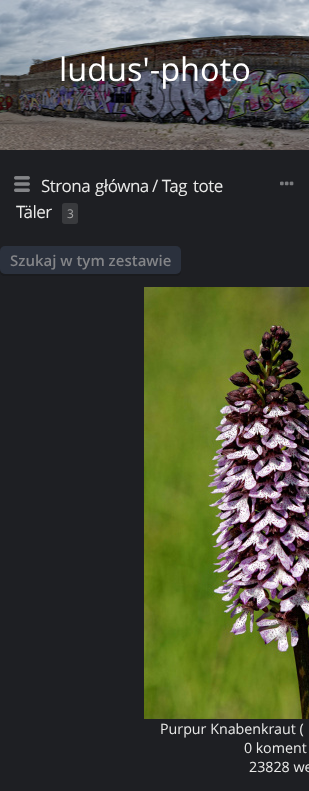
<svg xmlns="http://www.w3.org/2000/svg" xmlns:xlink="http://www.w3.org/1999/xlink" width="309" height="791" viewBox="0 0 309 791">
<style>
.cls-1{font:32.5px Open Sans;fill:#ffffff}
.cls-2{font:17px Open Sans;letter-spacing:-0.5px;fill:#eaeae9}
.cls-3{font:12px Open Sans;letter-spacing:-0.5px;fill:#a4a4a4}
.cls-4{font:600 15px Open Sans;fill:#848588}
.cls-5{font:14.25px Open Sans;fill:#eaeae9}
</style>
<rect width="100%" height="100%" fill="#1e1f23"/>
<image xlink:href="image0.png" x="0" y="0" width="309" height="150"/>
<image xlink:href="image1.png" x="14" y="176" width="16" height="16"/>
<path fill="#393a3d" d="M64.5 203H67V224H64.5C63 224 62 223 62 221.5V205.5C62 204 63 203 64.5 203Z"/>
<rect fill="#393a3d" x="67" y="203" width="6" height="21"/>
<path fill="#393a3d" d="M73 203H75.5C77 203 78 204 78 205.5V221.5C78 223 77 224 75.5 224H73Z"/>
<image xlink:href="image2.png" x="280" y="181" width="14" height="5"/>
<path fill="#1a1b1e" d="M0 269V271C0 274 2 276 5 276H176C179 276 181 274 181 271V269C181 272 179 274 176 274H5C2 274 0 272 0 269Z"/>
<rect fill="#2b313d" x="0" y="246" width="181" height="28" rx="5"/>
<image xlink:href="image3.png" x="144" y="287" width="165" height="432"/>
<text class="cls-1" x="59" y="81">ludus'-photo</text>
<text class="cls-2" x="41" y="192" word-spacing="1">Strona główna</text>
<text class="cls-2" x="152" y="192">/ Tag</text>
<text class="cls-2" x="193" y="192">tote</text>
<text class="cls-2" x="16" y="218">Täler</text>
<text class="cls-3" x="67" y="218">3</text>
<text class="cls-4" x="10" y="266">Szukaj w tym zestawie</text>
<text class="cls-5" x="160" y="734">Purpur Knabenkraut (</text>
<text class="cls-5" x="244" y="753">0 koment</text>
<text class="cls-5" x="249" y="772">23828 we</text>
</svg>
